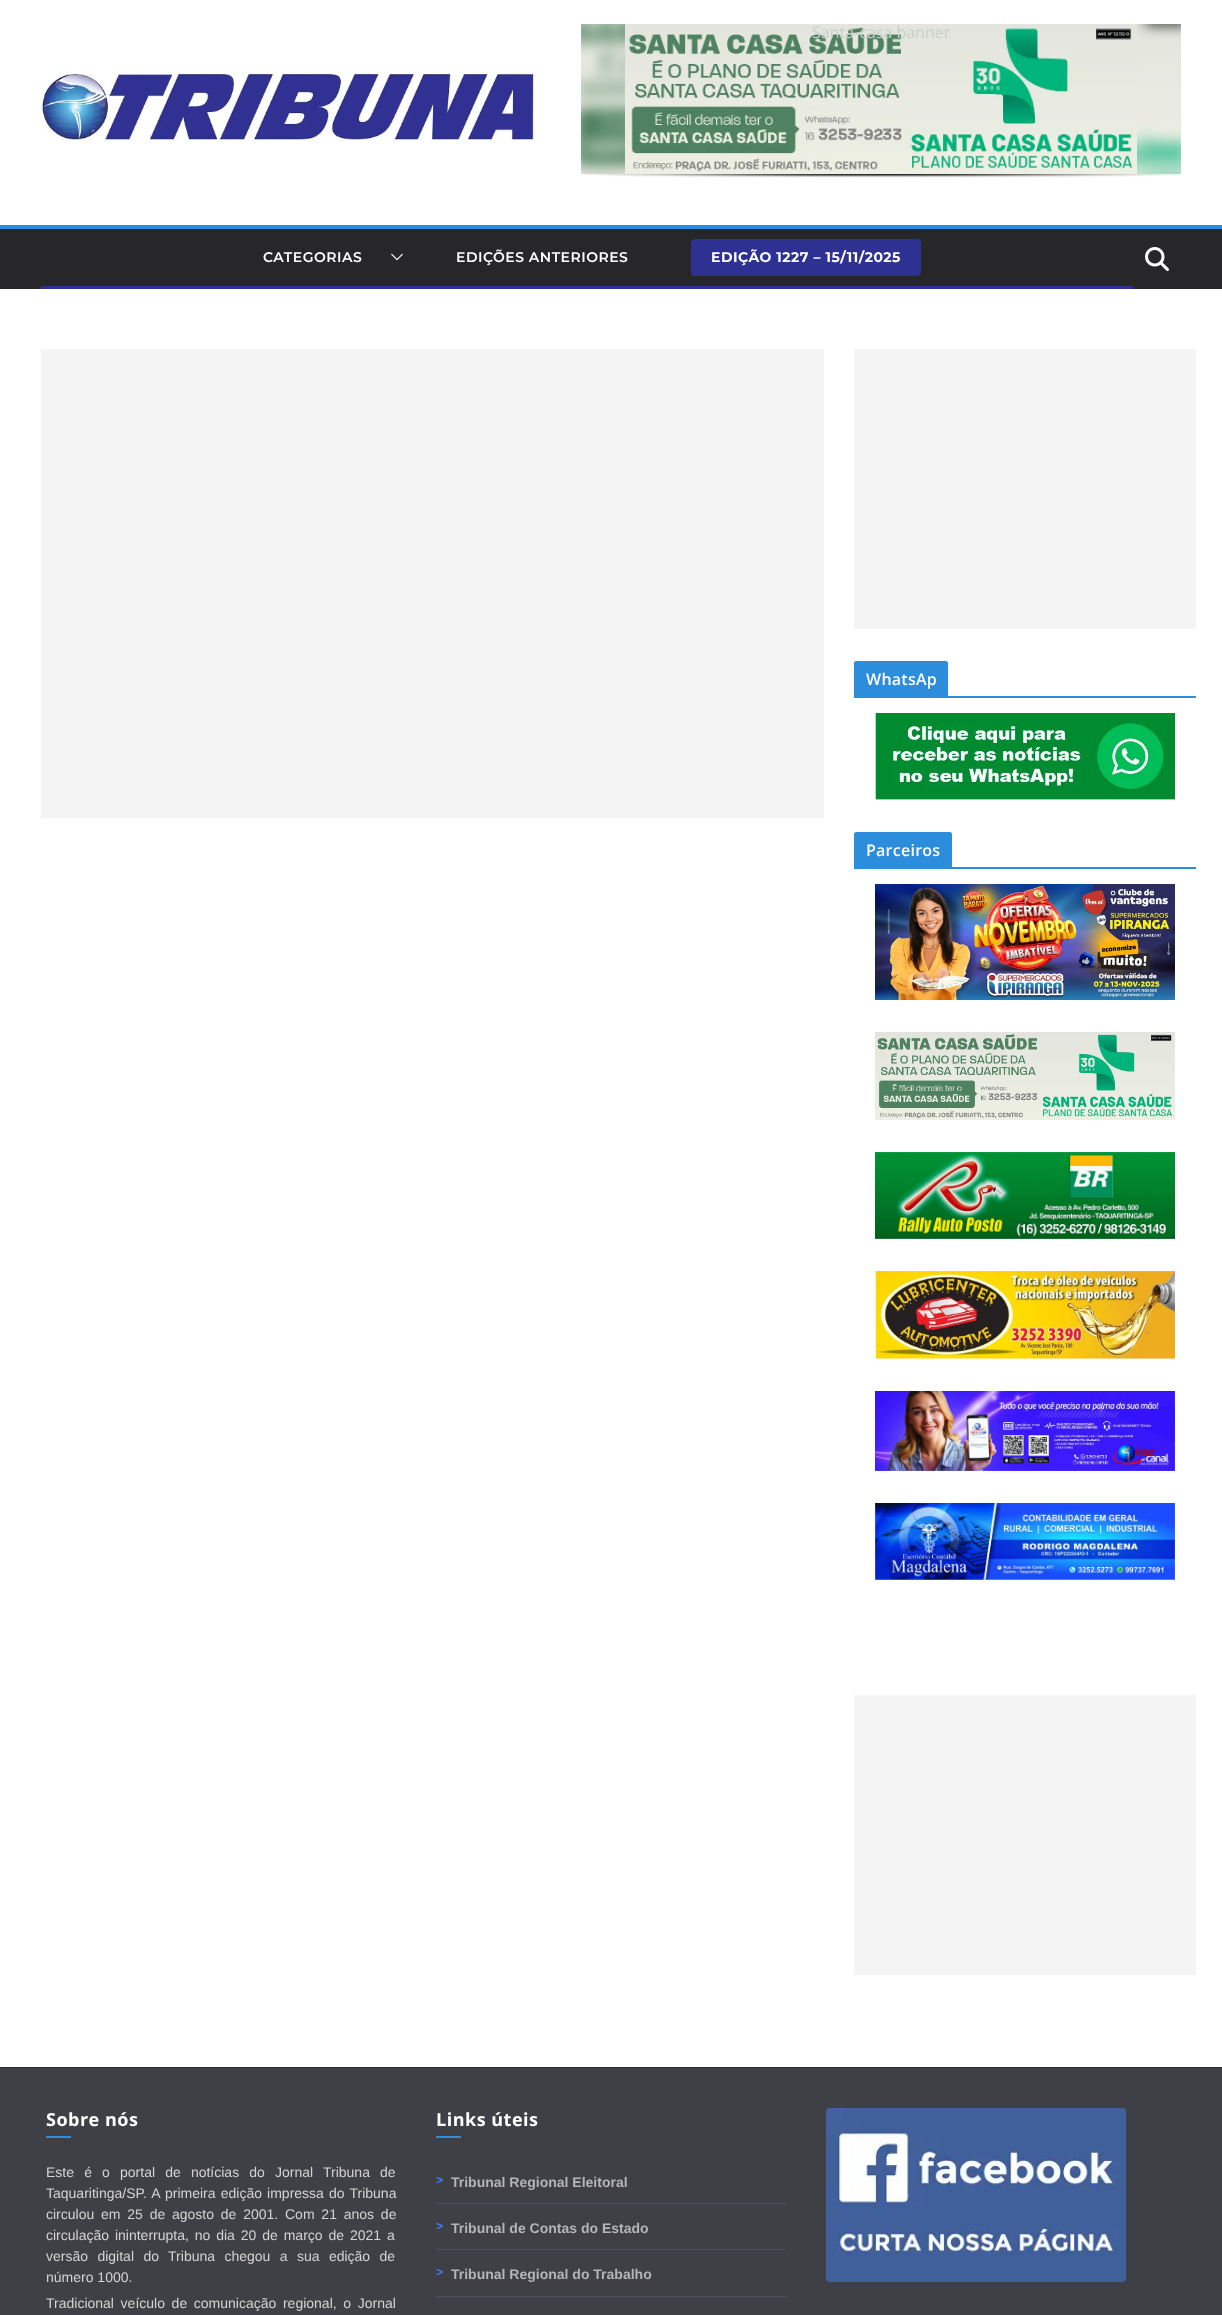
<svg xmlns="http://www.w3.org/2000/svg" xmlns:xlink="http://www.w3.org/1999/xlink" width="1222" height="2315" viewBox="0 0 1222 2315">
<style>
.cls-1{font:16px Open Sans;fill:#c5d1c4}
.cls-2{font:600 14px Montserrat;letter-spacing:0.5px;fill:#ffffff}
.cls-3{font:bold 14px Montserrat;letter-spacing:0.5px;fill:#ffffff}
.cls-4{font:600 16px Open Sans;letter-spacing:0.25px;fill:#ffffff}
.cls-5{font:bold 18px Open Sans;letter-spacing:0.5px;fill:#ffffff}
.cls-6{font:14px Liberation Sans;fill:#d4d4d4}
.cls-7{font:bold 12px Liberation Sans;fill:#3b82f6}
.cls-8{font:bold 14px Liberation Sans;fill:#b1b6b6}
</style>
<rect width="100%" height="100%" fill="#ffffff"/>
<image xlink:href="image0.png" x="581" y="24" width="600" height="150"/>
<image xlink:href="image1.png" x="625" y="24" width="512" height="150"/>
<image xlink:href="image2.png" x="583" y="174" width="596" height="4"/>
<image xlink:href="image3.png" x="41" y="71" width="495" height="71"/>
<rect fill="#27272a" x="0" y="229" width="1222" height="60"/>
<rect fill="#2c8ddd" x="0" y="225" width="1222" height="4"/>
<rect fill="#2e3192" x="41" y="286" width="1092" height="3"/>
<image xlink:href="image4.png" x="391" y="253" width="12" height="8"/>
<rect fill="#2e3192" x="691" y="239" width="230" height="37" rx="4"/>
<image xlink:href="image5.png" x="1145" y="247" width="24" height="24"/>
<rect fill="#f4f4f5" x="41" y="349" width="783" height="469"/>
<rect fill="#f4f4f5" x="854" y="349" width="342" height="280"/>
<rect fill="#2c8ddd" x="854" y="696" width="342" height="2"/>
<path fill="#2c8ddd" d="M856 661H946C947 661 948 662 948 663V696H854V663C854 662 855 661 856 661Z"/>
<image xlink:href="image6.png" x="875" y="713" width="300" height="87"/>
<rect fill="#2c8ddd" x="854" y="867" width="342" height="2"/>
<path fill="#2c8ddd" d="M856 832H950C951 832 952 833 952 834V867H854V834C854 833 855 832 856 832Z"/>
<image xlink:href="image7.png" x="875" y="884" width="300" height="116"/>
<image xlink:href="image8.png" x="875" y="1032" width="300" height="88"/>
<image xlink:href="image9.png" x="875" y="1152" width="300" height="87"/>
<image xlink:href="image10.png" x="875" y="1271" width="300" height="88"/>
<image xlink:href="image11.png" x="875" y="1391" width="300" height="80"/>
<image xlink:href="image12.png" x="875" y="1503" width="300" height="77"/>
<rect fill="#f4f4f5" x="854" y="1695" width="342" height="280"/>
<rect fill="#2a2a2e" x="0" y="2067" width="1222" height="1"/>
<rect fill="#3f3f46" x="0" y="2068" width="1222" height="247"/>
<rect fill="#2c8ddd" x="46" y="2136" width="25" height="2"/>
<rect fill="#2c8ddd" x="436" y="2136" width="25" height="2"/>
<rect fill="#52525b" x="436" y="2203" width="350" height="1"/>
<rect fill="#52525b" x="436" y="2249" width="350" height="1"/>
<rect fill="#52525b" x="436" y="2296" width="350" height="1"/>
<image xlink:href="image13.png" x="826" y="2108" width="300" height="174"/>
<text class="cls-1" x="812" y="38">Santa-casa banner</text>
<text class="cls-2" x="263" y="262">CATEGORIAS</text>
<text class="cls-2" x="456" y="262">EDIÇÕES ANTERIORES</text>
<text class="cls-3" x="711" y="262">EDIÇÃO 1227 – 15/11/2025</text>
<text class="cls-4" x="866" y="685">WhatsAp</text>
<text class="cls-4" x="866" y="856">Parceiros</text>
<text class="cls-5" x="46" y="2126">Sobre nós</text>
<text class="cls-6"><tspan x="46" y="2177" word-spacing="6.25">Este é o portal de notícias do Jornal Tribuna de</tspan><tspan x="46" y="2198" word-spacing="1.25">Taquaritinga/SP. A primeira edição impressa do Tribuna</tspan><tspan x="46" y="2219" word-spacing="2.9">circulou em 25 de agosto de 2001. Com 21 anos de</tspan><tspan x="46" y="2240" word-spacing="2">circulação ininterrupta, no dia 20 de março de 2021 a</tspan><tspan x="46" y="2261" word-spacing="5.5">versão digital do Tribuna chegou a sua edição de</tspan><tspan x="46" y="2282">número 1000.</tspan><tspan x="46" y="2308" word-spacing="2.75">Tradicional veículo de comunicação regional, o Jornal</tspan></text>
<text class="cls-5" x="436" y="2126">Links úteis</text>
<text class="cls-7" x="436" y="2184">&gt;</text>
<text class="cls-8" x="451" y="2187">Tribunal Regional Eleitoral</text>
<text class="cls-7" x="436" y="2230">&gt;</text>
<text class="cls-8" x="451" y="2233">Tribunal de Contas do Estado</text>
<text class="cls-7" x="436" y="2276">&gt;</text>
<text class="cls-8" x="451" y="2279">Tribunal Regional do Trabalho</text>
</svg>
